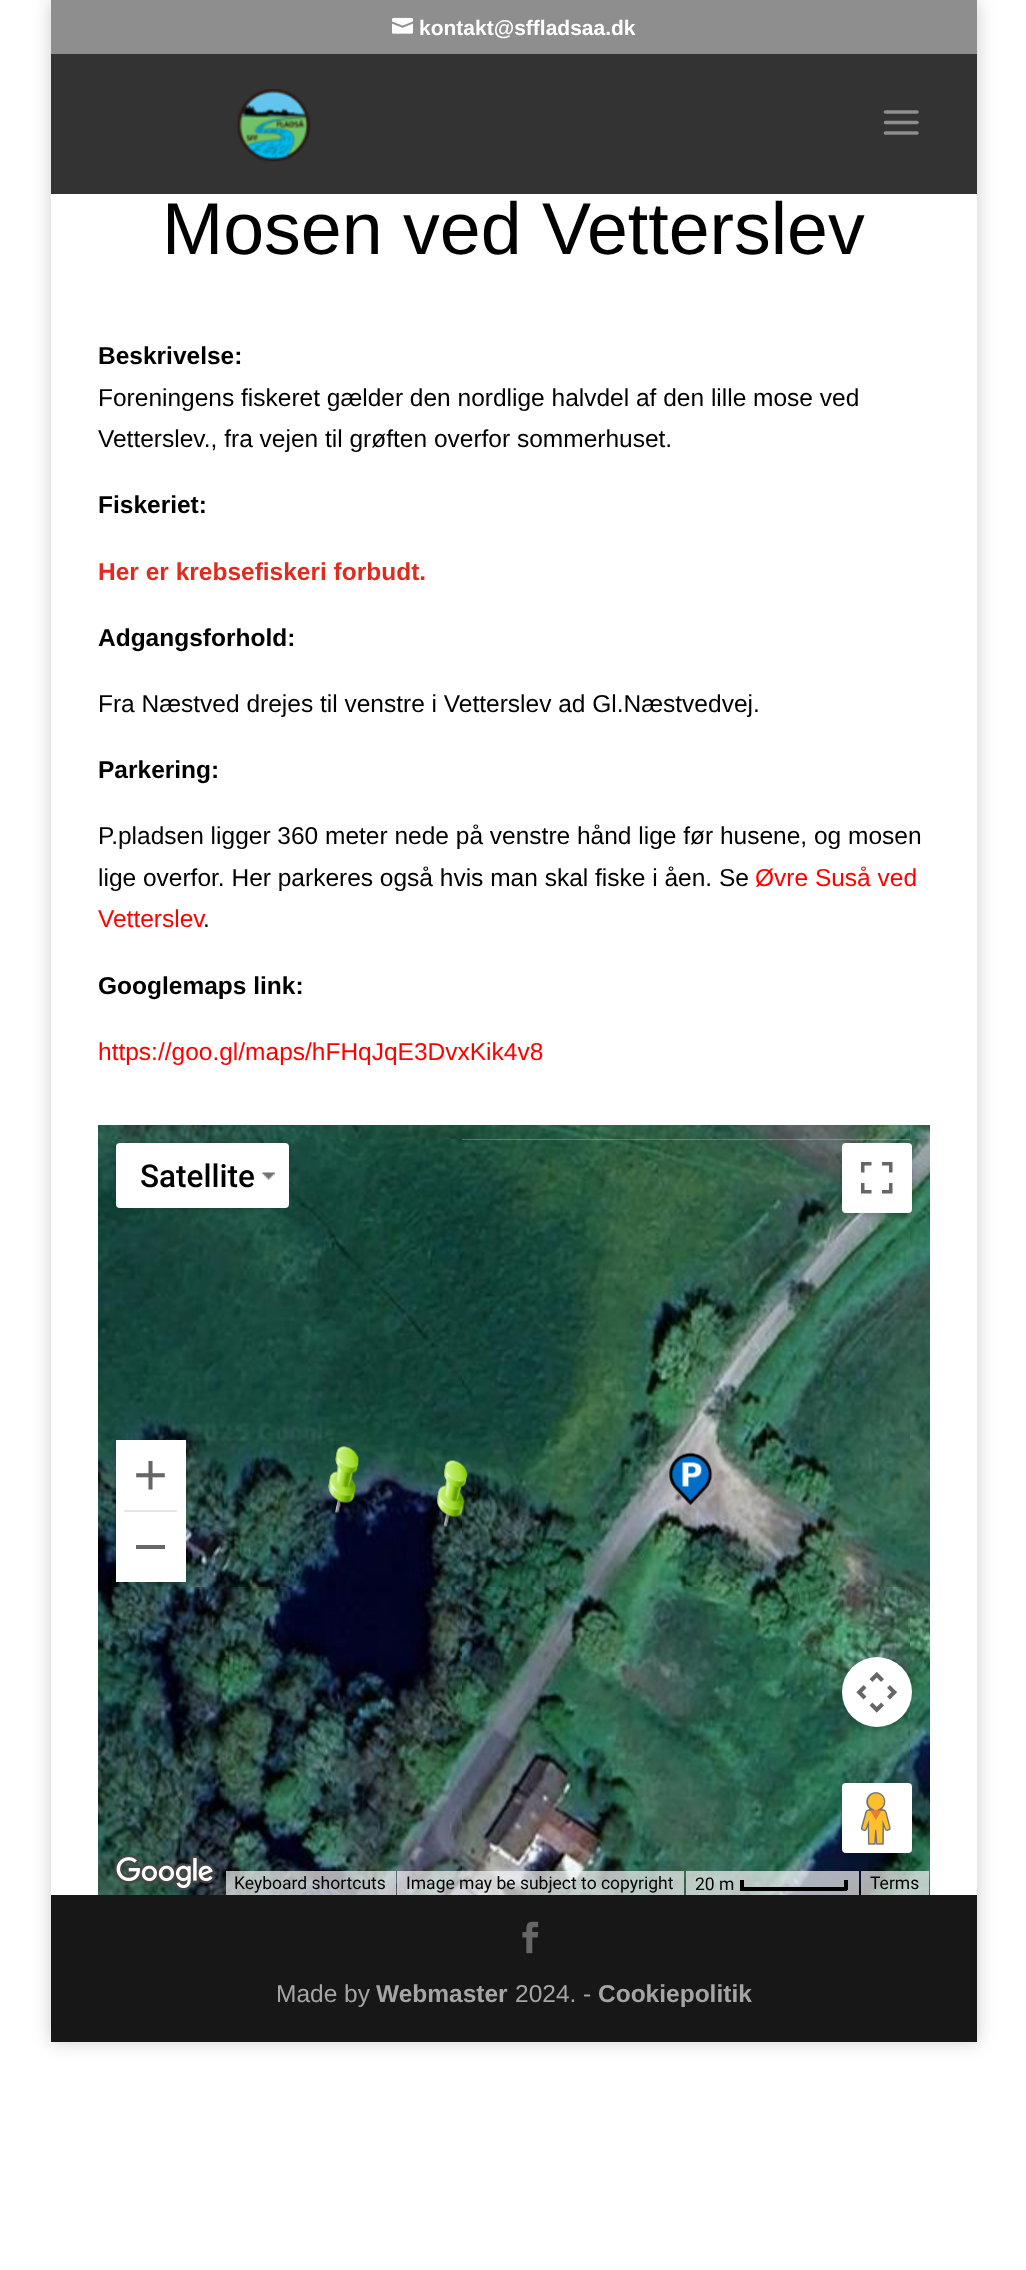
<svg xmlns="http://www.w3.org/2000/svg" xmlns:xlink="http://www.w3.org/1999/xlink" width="1026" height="2270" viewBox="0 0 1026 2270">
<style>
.cls-1{font:bold 21px Liberation Sans;fill:#ffffff}
.cls-2{font:73.5px Liberation Sans;fill:#000000}
.cls-3{font:bold 24.5px Liberation Sans;fill:#000000}
.cls-4{font:24.5px Liberation Sans;fill:#000000}
.cls-5{font:bold 24.5px Liberation Sans;fill:#e02b20}
.cls-6{font:24.5px Liberation Sans;fill:#ff0000}
.cls-7{font:500 31.5px Roboto;fill:#000000}
.cls-8{font:17.5px Roboto;fill:#000000}
.cls-9{font:24.5px Liberation Sans;fill:#a5a5a5}
.cls-10{font:bold 24.5px Liberation Sans;fill:#a5a5a5}
</style>
<rect width="100%" height="100%" fill="#ffffff"/>
<rect fill="#000000" fill-opacity="0.2" filter="blur(9px)" x="51" y="0" width="926" height="2042"/>
<rect fill="#8e8e8e" x="51" y="0" width="926" height="54"/>
<image xlink:href="image0.png" x="392" y="17" width="21" height="17"/>
<rect fill="#333333" x="51" y="54" width="926" height="140"/>
<image xlink:href="image1.png" x="237" y="89" width="74" height="73"/>
<image xlink:href="image2.png" x="883" y="110" width="36" height="25"/>
<rect fill="#ffffff" x="51" y="194" width="926" height="1701"/>
<image xlink:href="image3.png" x="98" y="1125" width="364" height="14"/>
<image xlink:href="image4.png" x="462" y="1125" width="448" height="14"/>
<image xlink:href="image5.png" x="910" y="1125" width="20" height="14"/>
<image xlink:href="image6.png" x="98" y="1139" width="364" height="448"/>
<image xlink:href="image7.png" x="462" y="1139" width="448" height="448"/>
<image xlink:href="image8.png" x="910" y="1139" width="20" height="448"/>
<image xlink:href="image9.png" x="98" y="1587" width="364" height="308"/>
<image xlink:href="image10.png" x="462" y="1587" width="448" height="308"/>
<image xlink:href="image11.png" x="910" y="1587" width="20" height="308"/>
<image xlink:href="image12.png" x="328" y="1446" width="32" height="68"/>
<image xlink:href="image13.png" x="436" y="1460" width="32" height="68"/>
<image xlink:href="image14.png" x="669" y="1452" width="44" height="54"/>
<rect fill="#000000" fill-opacity="0.3" filter="blur(3.5px)" x="117" y="1146" width="170" height="62" rx="2"/>
<rect fill="#ffffff" x="116" y="1143" width="173" height="65" rx="4"/>
<image xlink:href="image15.png" x="262" y="1172" width="13" height="8"/>
<rect fill="#000000" fill-opacity="0.3" filter="blur(3.5px)" x="844" y="1146" width="66" height="67" rx="2"/>
<rect fill="#ffffff" x="842" y="1143" width="70" height="70" rx="4"/>
<image xlink:href="image16.png" x="861" y="1162" width="32" height="32"/>
<rect fill="#000000" fill-opacity="0.3" filter="blur(3.5px)" x="117" y="1444" width="67" height="138" rx="2"/>
<rect fill="#ffffff" x="116" y="1440" width="70" height="142"/>
<image xlink:href="image17.png" x="136" y="1460" width="29" height="30"/>
<rect fill="#e6e6e6" x="124" y="1510" width="53" height="2"/>
<rect fill="#666666" x="136" y="1545" width="29" height="4"/>
<rect fill="#000000" fill-opacity="0.3" filter="blur(3.5px)" x="844" y="1661" width="66" height="66" rx="33"/>
<circle fill="#ffffff" cx="877" cy="1692" r="35"/>
<image xlink:href="image18.png" x="856" y="1671" width="42" height="42"/>
<rect fill="#000000" fill-opacity="0.3" filter="blur(3.5px)" x="844" y="1787" width="66" height="66" rx="2"/>
<rect fill="#ffffff" x="842" y="1783" width="70" height="70" rx="4"/>
<image xlink:href="image19.png" x="860" y="1792" width="31" height="53"/>
<image xlink:href="image20.png" x="114" y="1854" width="102" height="37"/>
<rect fill="#f5f5f5" fill-opacity="0.7" x="226" y="1871" width="170" height="24"/>
<rect fill="#f5f5f5" fill-opacity="0.7" x="397" y="1871" width="287" height="24"/>
<rect fill="#f5f5f5" fill-opacity="0.7" x="686" y="1871" width="173" height="24"/>
<rect fill="#000000" x="740" y="1887" width="107" height="4"/>
<rect fill="#000000" x="740" y="1880" width="4" height="10"/>
<rect fill="#000000" x="844" y="1880" width="4" height="10"/>
<rect fill="#f5f5f5" fill-opacity="0.7" x="861" y="1871" width="68" height="24"/>
<rect fill="#171717" x="51" y="1895" width="926" height="147"/>
<image xlink:href="image21.png" x="522" y="1921" width="17" height="33"/>
<text class="cls-1" x="419" y="35">kontakt@sffladsaa.dk</text>
<text class="cls-2" x="162" y="254">Mosen ved Vetterslev</text>
<text class="cls-3" x="98" y="364">Beskrivelse:</text>
<text class="cls-4"><tspan x="98" y="406">Foreningens fiskeret gælder den nordlige halvdel af den lille mose ved</tspan><tspan x="98" y="447">Vetterslev., fra vejen til grøften overfor sommerhuset.</tspan></text>
<text class="cls-3" x="98" y="513">Fiskeriet:</text>
<text class="cls-5" x="98" y="580">Her er krebsefiskeri forbudt.</text>
<text class="cls-3" x="98" y="646">Adgangsforhold:</text>
<text class="cls-4" x="98" y="712">Fra Næstved drejes til venstre i Vetterslev ad Gl.Næstvedvej.</text>
<text class="cls-3" x="98" y="778">Parkering:</text>
<text class="cls-4"><tspan x="98" y="844">P.pladsen ligger 360 meter nede på venstre hånd lige før husene, og mosen</tspan><tspan x="98" y="886">lige overfor. Her parkeres også hvis man skal fiske i åen. Se</tspan></text>
<text class="cls-6" x="755" y="886">Øvre Suså ved</text>
<text class="cls-6" x="98" y="927">Vetterslev</text>
<text class="cls-4" x="203" y="927">.</text>
<text class="cls-3" x="98" y="994">Googlemaps link:</text>
<text class="cls-6" x="98" y="1060">https://goo.gl/maps/hFHqJqE3DvxKik4v8</text>
<text class="cls-7" x="140" y="1187">Satellite</text>
<text class="cls-8" x="234" y="1889">Keyboard shortcuts</text>
<text class="cls-8" x="406" y="1889">Image may be subject to copyright</text>
<text class="cls-8" x="695" y="1890">20 m</text>
<text class="cls-8" x="870" y="1889">Terms</text>
<text class="cls-9" x="276" y="2002">Made by</text>
<text class="cls-10" x="376" y="2002">Webmaster</text>
<text class="cls-9" x="515" y="2002">2024. -</text>
<text class="cls-10" x="598" y="2002">Cookiepolitik</text>
</svg>
